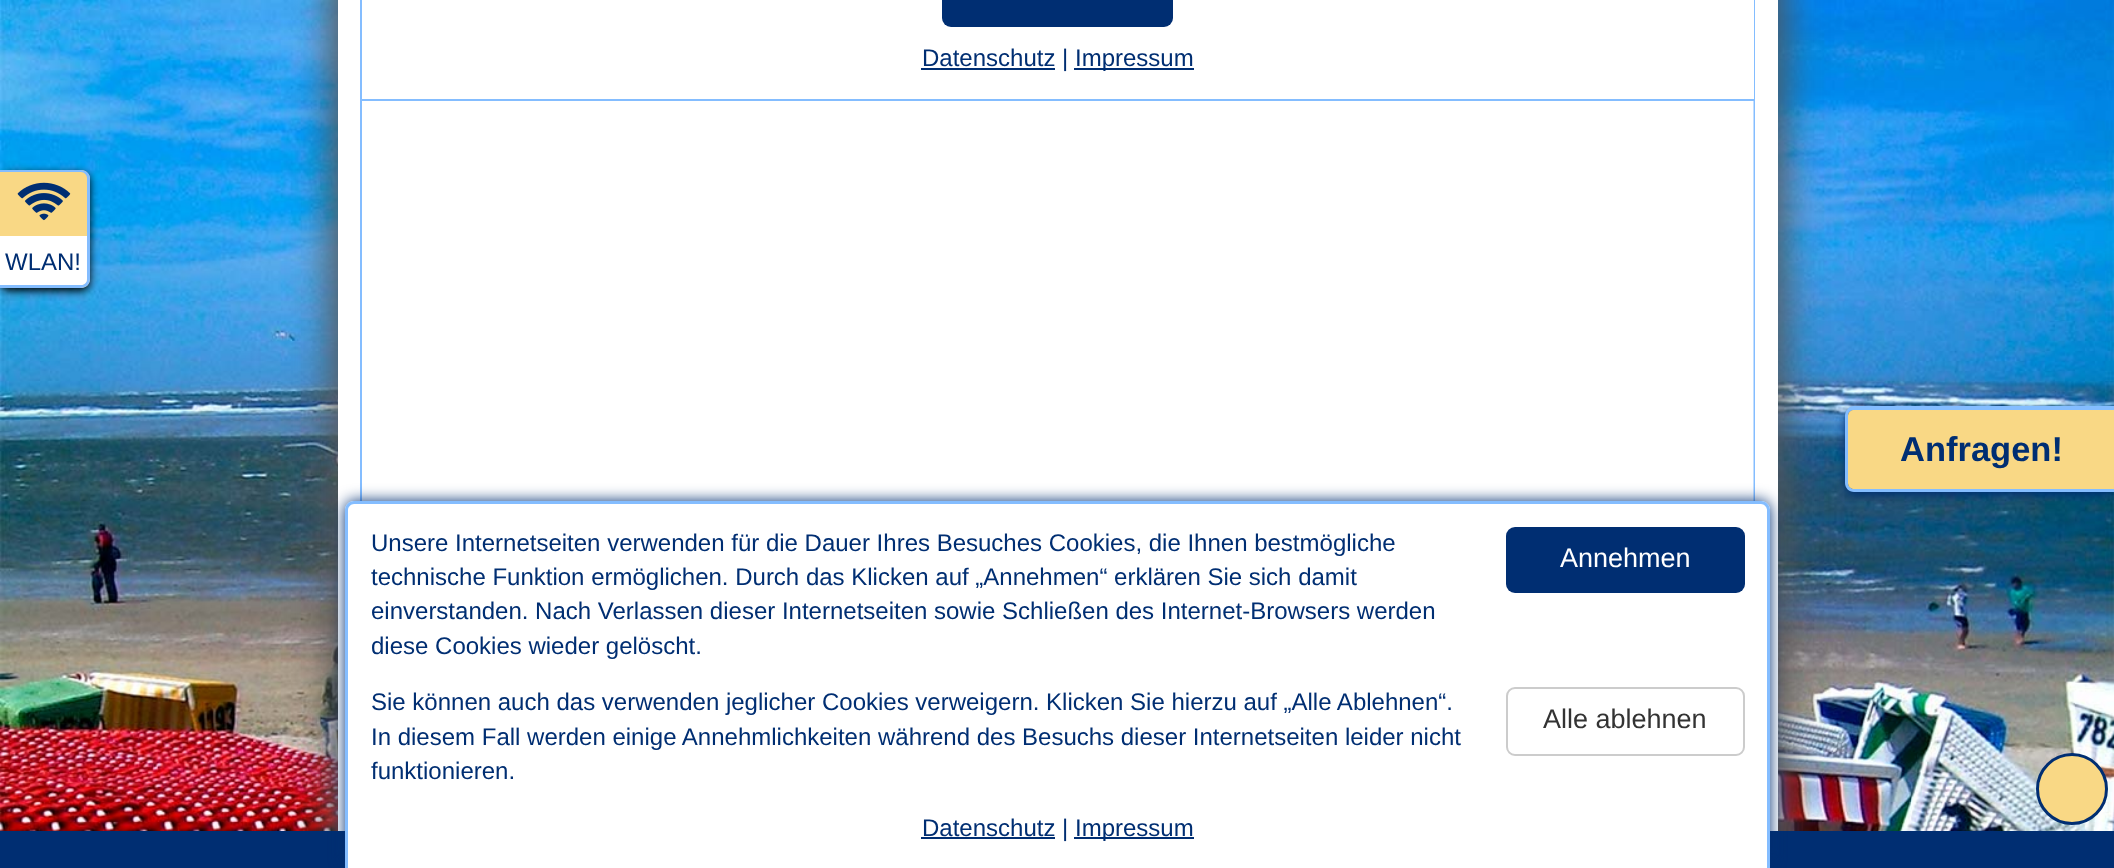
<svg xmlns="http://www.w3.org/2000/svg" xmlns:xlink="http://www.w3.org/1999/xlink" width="2114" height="868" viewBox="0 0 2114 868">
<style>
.cls-1{font:24px Liberation Sans;fill:#002e72}
.cls-2{font:bold 34.5px Liberation Sans;fill:#002e72}
.cls-3{font:27px Liberation Sans;fill:#ffffff}
.cls-4{font:27px Liberation Sans;fill:#333333}
</style>
<rect width="100%" height="100%" fill="#ffffff"/>
<image xlink:href="image0.png" x="0" y="0" width="2114" height="831"/>
<rect fill="#555555" filter="blur(19px)" x="330" y="-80" width="1455" height="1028" rx="23"/>
<rect fill="none" stroke="#ffffff" stroke-width="23" x="349.5" y="-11.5" width="1417" height="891"/>
<rect fill="#ffffff" x="362" y="101" width="1391" height="400"/>
<rect fill="none" stroke="#84bdff" stroke-width="2" x="361" y="-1" width="1393" height="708"/>
<rect fill="#ffffff" x="362" y="0" width="1392" height="99"/>
<rect fill="#84bdff" x="362" y="99" width="1392" height="2"/>
<rect fill="#002e72" x="942" y="-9" width="231" height="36" rx="9"/>
<rect fill="#002e72" x="921" y="68" width="134" height="2"/>
<rect fill="#002e72" x="1074" y="68" width="120" height="2"/>
<rect fill="#ffffff" fill-opacity="0.5" x="1753" y="101" width="1" height="400"/>
<rect fill="#000000" filter="blur(4px)" x="0" y="173" width="90" height="118" rx="9"/>
<path fill="#f9d885" d="M0 170H81C86 170 90 174 90 179V279C90 284 86 288 81 288H0Z"/>
<path fill="#84bdff" fill-rule="evenodd" d="M0 170H81C86 170 90 174 90 178V279C90 284 86 288 81 288H0ZM0 172H81C84 172 87 175 87 178V279C87 282 84 285 81 285H0Z"/>
<image xlink:href="image1.png" x="17" y="182" width="54" height="39"/>
<path fill="#ffffff" d="M0 236H87V279C87 282.5 84.5 285 81 285H0Z"/>
<rect fill="#002e72" filter="blur(4px)" x="1845" y="410" width="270" height="85" rx="9"/>
<path fill="#84bdff" fill-rule="evenodd" d="M1854 406H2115V492H1854C1849 492 1845 488 1845 483V416C1845 411 1849 406 1854 406ZM1854 410H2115V489H1854C1851 489 1848 486 1848 483V416C1848 412 1851 410 1854 410Z"/>
<path fill="#f9d885" d="M1854 410H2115V489H1854C1850.5 489 1848 486.5 1848 483V416C1848 412.5 1850.5 410 1854 410Z"/>
<rect fill="#002e72" x="0" y="831" width="345" height="37"/>
<rect fill="#002e72" x="1770" y="831" width="344" height="37"/>
<rect fill="#002e72" filter="blur(7.5px)" x="345" y="501" width="1425" height="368" rx="9"/>
<path fill="#ffffff" d="M354 501H1761C1766 501 1770 505 1770 510V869H345V510C345 505 349 501 354 501Z"/>
<path fill="#84bdff" fill-rule="evenodd" d="M354 501H1761C1766 501 1770 505 1770 510V868H345V510C345 505 349 501 354 501ZM354 504H1761C1764 504 1767 507 1767 510V868H348V510C348 507 351 504 354 504Z"/>
<rect fill="#002e72" x="1506" y="527" width="239" height="66" rx="9"/>
<rect fill="none" stroke="#cccccc" stroke-width="2" x="1507" y="688" width="237" height="67" rx="8"/>
<rect fill="#002e72" x="921" y="837" width="134" height="2"/>
<rect fill="#002e72" x="1074" y="837" width="120" height="2"/>
<circle fill="#f9d885" stroke="#002e72" stroke-width="3" cx="2072" cy="789" r="34.5"/>
<text class="cls-1" x="922" y="66">Datenschutz |</text>
<text class="cls-1" x="1075" y="66">Impressum</text>
<text class="cls-1" x="5" y="270">WLAN!</text>
<text class="cls-2" x="1900" y="461">Anfragen!</text>
<text class="cls-1"><tspan x="371" y="551">Unsere Internetseiten verwenden für die Dauer Ihres Besuches Cookies, die Ihnen bestmögliche</tspan><tspan x="371" y="585">technische Funktion ermöglichen. Durch das Klicken auf „Annehmen“ erklären Sie sich damit</tspan><tspan x="371" y="619">einverstanden. Nach Verlassen dieser Internetseiten sowie Schließen des Internet-Browsers werden</tspan><tspan x="371" y="654">diese Cookies wieder gelöscht.</tspan></text>
<text class="cls-3" x="1560" y="567">Annehmen</text>
<text class="cls-1"><tspan x="371" y="710">Sie können auch das verwenden jeglicher Cookies verweigern. Klicken Sie hierzu auf „Alle Ablehnen“.</tspan><tspan x="371" y="745">In diesem Fall werden einige Annehmlichkeiten während des Besuchs dieser Internetseiten leider nicht</tspan><tspan x="371" y="779">funktionieren.</tspan></text>
<text class="cls-4" x="1543" y="728">Alle ablehnen</text>
<text class="cls-1" x="922" y="836">Datenschutz |</text>
<text class="cls-1" x="1075" y="836">Impressum</text>
</svg>
